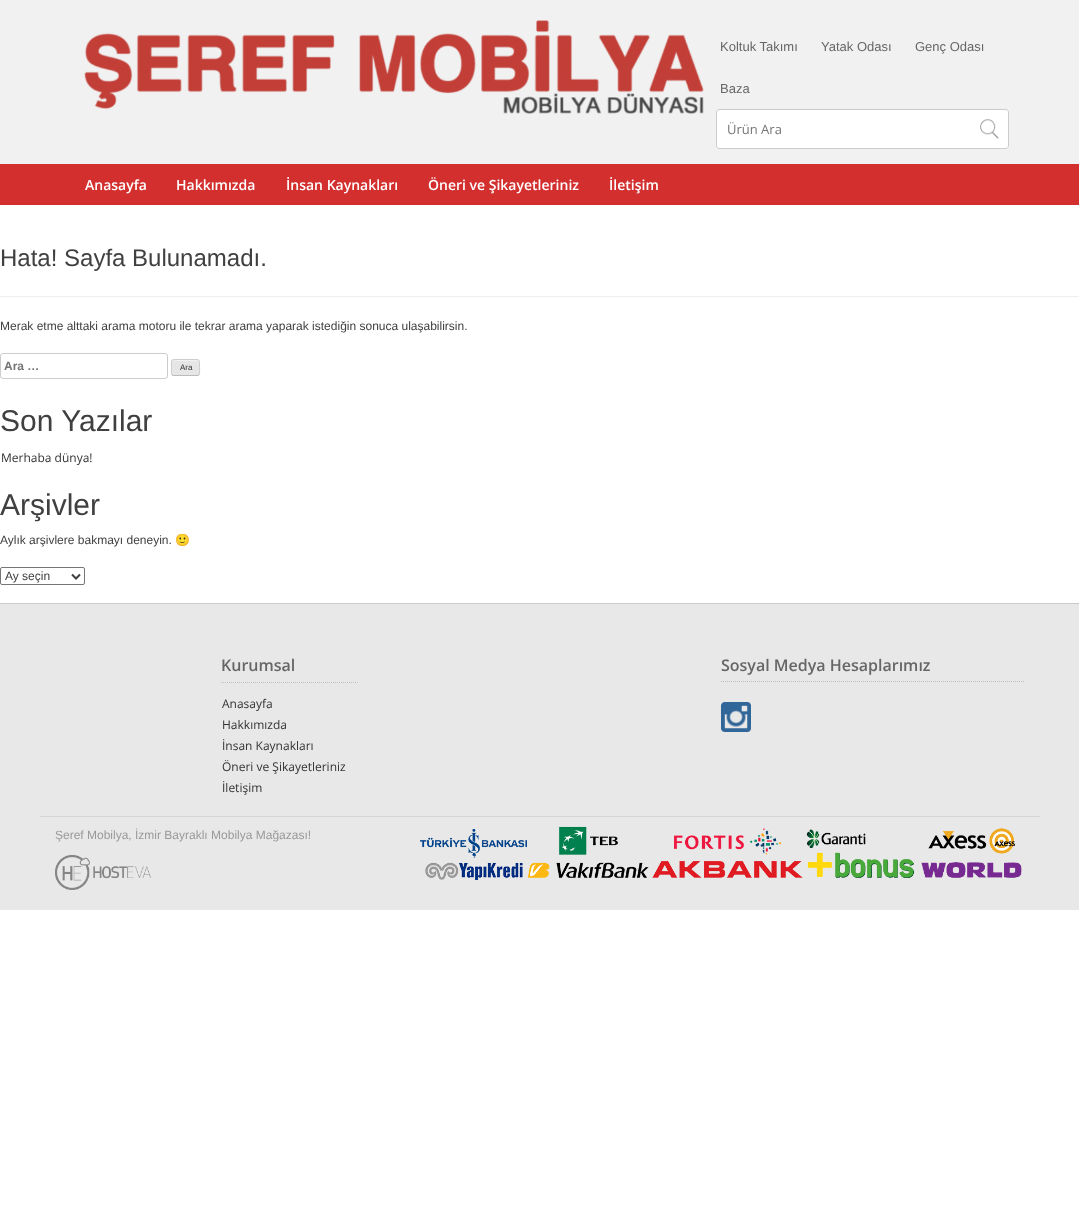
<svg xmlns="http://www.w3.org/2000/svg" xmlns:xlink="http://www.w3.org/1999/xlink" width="1079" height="1216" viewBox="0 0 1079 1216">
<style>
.cls-1{font:13px Liberation Sans;fill:#666666}
.cls-2{font:13px Open Sans;fill:#757575}
.cls-3{font:600 14px Open Sans;fill:#ffffff}
.cls-4{font:24px Liberation Sans;fill:#404040}
.cls-5{font:12px Liberation Sans;fill:#404040}
.cls-6{font:bold 12px Liberation Sans;fill:#757575}
.cls-7{font:8px Liberation Sans;fill:#333333}
.cls-8{font:30px Liberation Sans;fill:#404040}
.cls-9{font:12px Open Sans;fill:#333333}
.cls-10{font:12px Noto Color Emoji;fill:#404040}
.cls-11{font:600 16px Open Sans;fill:#666666}
.cls-12{font:12px Liberation Sans;fill:#999999}
</style>
<rect width="100%" height="100%" fill="#ffffff"/>
<rect fill="#f1f1f1" x="0" y="0" width="1079" height="164"/>
<image xlink:href="image0.png" x="84" y="20" width="620" height="94"/>
<rect fill="#ffffff" x="716" y="109" width="293" height="40" rx="2"/>
<image xlink:href="image1.png" x="980" y="119" width="19" height="20"/>
<rect fill="none" stroke="#cccccc" x="716.5" y="109.5" width="292" height="39" rx="2.5"/>
<rect fill="#d32f2f" x="0" y="164" width="1079" height="41"/>
<rect fill="#eeeeee" x="0" y="296" width="1079" height="1"/>
<rect fill="none" stroke="#cccccc" x="0.5" y="353.5" width="167" height="25" rx="2.5"/>
<rect fill="#e6e6e6" x="171" y="359" width="29" height="17" rx="3"/>
<path fill="#f3f3f3" fill-rule="evenodd" d="M174 361H193C197 361 198.5 361.5 199 363C199 359 196.5 360 193 360H178C173.5 360 172 359 172 363.5C172 362 173 361 174 361ZM172 374V370Z"/>
<path fill="none" stroke="#bbbbbb" d="M199 375C198.5 375 197.5 375.5 197 375.5H174C173.5 375.5 172.5 375 172 375"/>
<path fill="none" stroke="#cccccc" d="M172 375C171 373.5 171.5 369 171.5 367.5C171.5 360 170.5 359.5 178 359.5H193C200.5 359.5 199.5 360 199.5 367.5C199.5 369 200 373.5 199 375"/>
<rect fill="none" stroke="#767676" x="0.5" y="567.5" width="84" height="17" rx="1.5"/>
<path fill="none" stroke="#404040" stroke-width="2" d="M72 574.5L76 578.5L80 574.5"/>
<rect fill="#e8e8e8" x="0" y="604" width="1079" height="306"/>
<rect fill="#cbcbcb" x="0" y="603" width="1079" height="1"/>
<path fill="none" stroke="#c1c1c1" stroke-dasharray="1 1" d="M221 682.5H358"/>
<path fill="none" stroke="#c0c0c0" stroke-dasharray="1 1" d="M721 681.5H1024"/>
<image xlink:href="image2.png" x="721" y="702" width="30" height="30"/>
<rect fill="#d5d5d5" x="40" y="816" width="1000" height="1"/>
<image xlink:href="image3.png" x="55" y="855" width="96" height="35"/>
<image xlink:href="image4.png" x="420" y="826" width="602" height="54"/>
<text class="cls-1" x="720" y="51">Koltuk Takımı</text>
<text class="cls-1" x="821" y="51">Yatak Odası</text>
<text class="cls-1" x="915" y="51">Genç Odası</text>
<text class="cls-1" x="720" y="93">Baza</text>
<text class="cls-2" x="727" y="134">Ürün Ara</text>
<text class="cls-3" x="85" y="190">Anasayfa</text>
<text class="cls-3" x="176" y="190">Hakkımızda</text>
<text class="cls-3" x="286" y="190">İnsan Kaynakları</text>
<text class="cls-3" x="428" y="190">Öneri ve Şikayetleriniz</text>
<text class="cls-3" x="609" y="190">İletişim</text>
<text class="cls-4" x="0" y="266">Hata! Sayfa Bulunamadı.</text>
<text class="cls-5" x="0" y="330">Merak etme alttaki arama motoru ile tekrar arama yaparak istediğin sonuca ulaşabilirsin.</text>
<text class="cls-6" x="4" y="370">Ara …</text>
<text class="cls-7" x="180" y="370">Ara</text>
<text class="cls-8" x="0" y="431">Son Yazılar</text>
<text class="cls-9" x="1" y="462">Merhaba dünya!</text>
<text class="cls-8" x="0" y="515">Arşivler</text>
<text class="cls-5" x="0" y="544">Aylık arşivlere bakmayı deneyin.</text>
<text class="cls-10" x="175" y="544">🙂</text>
<text class="cls-5" x="5" y="580">Ay seçin</text>
<text class="cls-11" x="221" y="671">Kurumsal</text>
<text class="cls-9"><tspan x="222" y="708">Anasayfa</tspan><tspan x="222" y="729">Hakkımızda</tspan><tspan x="222" y="750">İnsan Kaynakları</tspan><tspan x="222" y="771">Öneri ve Şikayetleriniz</tspan><tspan x="222" y="792">İletişim</tspan></text>
<text class="cls-11" x="721" y="671">Sosyal Medya Hesaplarımız</text>
<text class="cls-12" x="55" y="839">Şeref Mobilya, İzmir Bayraklı Mobilya Mağazası!</text>
</svg>
